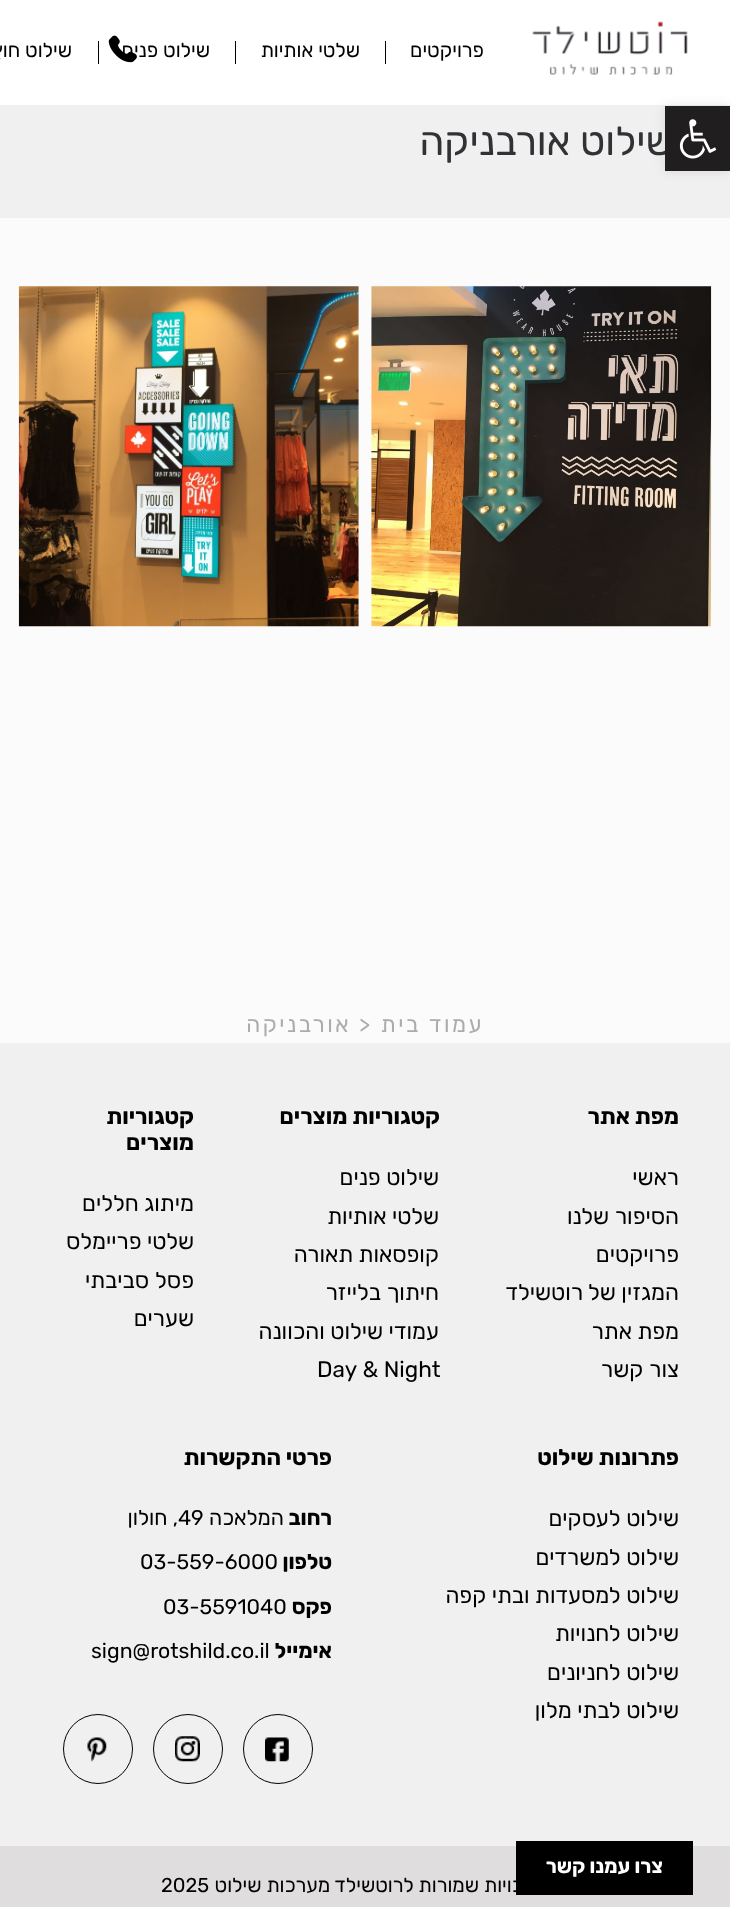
<svg xmlns="http://www.w3.org/2000/svg" xmlns:xlink="http://www.w3.org/1999/xlink" width="730" height="1907" viewBox="0 0 730 1907">
<style>
.cls-1{font:20px Rubik;direction:rtl;fill:#000000}
.cls-2{font:40px Rubik;direction:rtl;fill:#313236}
.cls-3{font:22.5px Rubik;letter-spacing:2.5px;direction:rtl;fill:#adabab}
.cls-4{font:22.5px Rubik;letter-spacing:2.5px;fill:#adabab}
.cls-5{font:bold 22.5px Rubik;direction:rtl;fill:#000000}
.cls-6{font:22.5px Rubik;direction:rtl;fill:#000000}
.cls-7{font:22.5px Rubik;fill:#000000}
.cls-8{font:bold 21.25px Rubik;direction:rtl;fill:#000000}
.cls-9{font:21.25px Rubik;direction:rtl;fill:#000000}
.cls-10{font:21.25px Rubik;fill:#000000}
.cls-11{font:20px Rubik;fill:#000000}
.cls-12{font:bold 20px Rubik;direction:rtl;fill:#ffffff}
</style>
<rect width="100%" height="100%" fill="#fbfbfb"/>
<rect fill="#ffffff" x="0" y="0" width="730" height="105"/>
<rect fill="#f0f0f0" x="0" y="105" width="730" height="113"/>
<rect fill="#000000" fill-opacity="0.1" filter="blur(6px)" x="665" y="106" width="65" height="65"/>
<image xlink:href="image1.png" x="532" y="21" width="156" height="54"/>
<image xlink:href="image2.png" x="108" y="35" width="29" height="28"/>
<rect fill="#000000" x="385" y="41" width="1" height="23"/>
<rect fill="#000000" x="235" y="41" width="1" height="23"/>
<rect fill="#000000" x="98" y="41" width="1" height="23"/>
<image xlink:href="image3.png" x="371" y="286" width="341" height="341"/>
<image xlink:href="image4.png" x="18" y="286" width="341" height="341"/>
<rect fill="#f0f0f0" x="0" y="1043" width="730" height="803"/>
<circle fill="none" stroke="#000000" cx="278" cy="1749" r="34.5"/>
<image xlink:href="image5.png" x="265" y="1737" width="24" height="25"/>
<circle fill="none" stroke="#000000" cx="188" cy="1749" r="34.5"/>
<image xlink:href="image6.png" x="175" y="1736" width="25" height="26"/>
<circle fill="none" stroke="#000000" cx="98" cy="1749" r="34.5"/>
<image xlink:href="image7.png" x="87" y="1737" width="20" height="25"/>
<rect fill="#dfdddd" x="0" y="1846" width="730" height="61"/>
<rect fill="#000000" x="516" y="1841" width="177" height="54"/>
<text class="cls-1" x="484" y="57">פרויקטים</text>
<text class="cls-1" x="360" y="57">שלטי אותיות</text>
<text class="cls-1" x="210" y="57">שילוט פנים</text>
<text class="cls-1" x="72" y="57">שילוט חוץ</text>
<text class="cls-2" x="674" y="155">שילוט אורבניקה</text>
<rect fill="#201e1f" x="665" y="106" width="65" height="65"/>
<image xlink:href="image0.png" x="679" y="119" width="38" height="40"/>
<text class="cls-3" x="484" y="1032" word-spacing="1">עמוד בית</text>
<text class="cls-4" x="359" y="1032">&gt;</text>
<text class="cls-3" x="351" y="1032">אורבניקה</text>
<text class="cls-5" x="679" y="1124">מפת אתר</text>
<text class="cls-6"><tspan x="679" y="1185">ראשי</tspan><tspan x="679" y="1224" word-spacing="1">הסיפור שלנו</tspan><tspan x="679" y="1262">פרויקטים</tspan><tspan x="679" y="1300">המגזין של רוטשילד</tspan><tspan x="679" y="1339">מפת אתר</tspan><tspan x="679" y="1377" word-spacing="1">צור קשר</tspan></text>
<text class="cls-5" x="440" y="1124">קטגוריות מוצרים</text>
<text class="cls-6"><tspan x="439" y="1185">שילוט פנים</tspan><tspan x="439" y="1224">שלטי אותיות</tspan><tspan x="439" y="1262">קופסאות תאורה</tspan><tspan x="439" y="1300" word-spacing="1">חיתוך בלייזר</tspan><tspan x="439" y="1339">עמודי שילוט והכוונה</tspan></text>
<text class="cls-7" x="317" y="1377">Day &amp; Night</text>
<text class="cls-5"><tspan x="194" y="1124">קטגוריות</tspan><tspan x="194" y="1150">מוצרים</tspan></text>
<text class="cls-6"><tspan x="194" y="1211">מיתוג חללים</tspan><tspan x="194" y="1249">שלטי פריימלס</tspan><tspan x="194" y="1288" word-spacing="1">פסל סביבתי</tspan><tspan x="194" y="1326">שערים</tspan></text>
<text class="cls-5" x="679" y="1465">פתרונות שילוט</text>
<text class="cls-6"><tspan x="679" y="1526">שילוט לעסקים</tspan><tspan x="679" y="1565">שילוט למשרדים</tspan><tspan x="679" y="1603">שילוט למסעדות ובתי קפה</tspan><tspan x="679" y="1641">שילוט לחנויות</tspan><tspan x="679" y="1680">שילוט לחניונים</tspan><tspan x="679" y="1718">שילוט לבתי מלון</tspan></text>
<text class="cls-5" x="332" y="1465">פרטי התקשרות</text>
<text class="cls-8" x="332" y="1525">רחוב</text>
<text class="cls-9" x="284" y="1525">המלאכה</text>
<text class="cls-10" x="178" y="1525">49</text>
<text class="cls-9" x="178" y="1525">, חולון</text>
<text class="cls-8" x="332" y="1569">טלפון</text>
<text class="cls-10" x="140" y="1569">03-559-6000</text>
<text class="cls-8" x="332" y="1614">פקס</text>
<text class="cls-10" x="163" y="1614">03-5591040</text>
<text class="cls-8" x="332" y="1658">אימייל</text>
<text class="cls-10" x="91" y="1658">sign@rotshild.co.il</text>
<text class="cls-1" x="569" y="1892">כל הזכויות שמורות לרוטשילד מערכות שילוט</text>
<text class="cls-11" x="161" y="1892">2025</text>
<text class="cls-12" x="663" y="1873">צרו עמנו קשר</text>
</svg>
